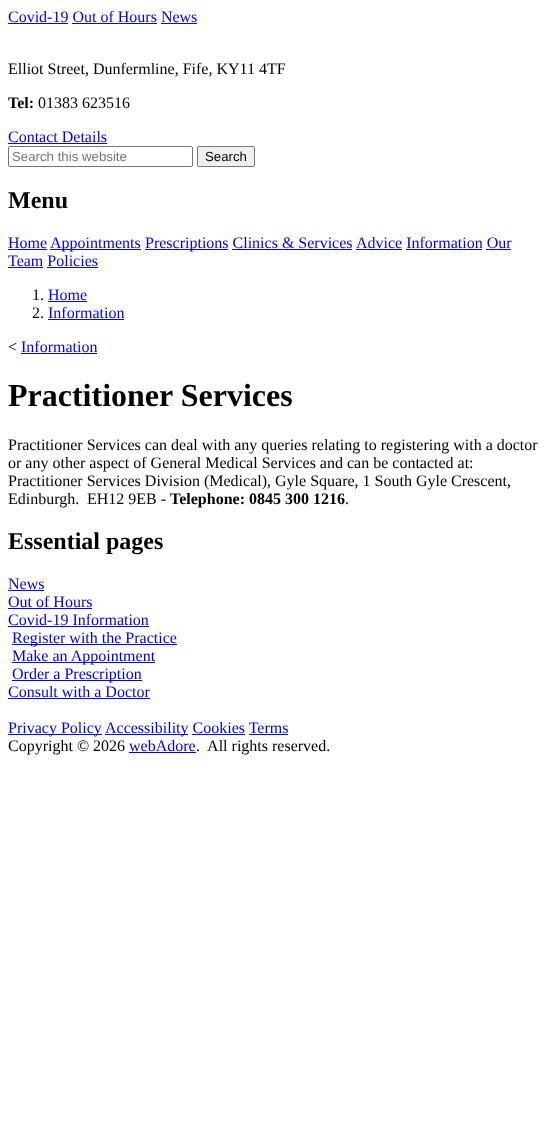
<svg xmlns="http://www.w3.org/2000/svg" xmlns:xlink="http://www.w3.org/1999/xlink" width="546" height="1141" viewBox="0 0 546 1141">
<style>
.cls-1{font:16px Liberation Serif;fill:#0000ee}
.cls-2{font:16px Liberation Serif;fill:#000000}
.cls-3{font:bold 16px Liberation Serif;fill:#000000}
.cls-4{font:13.25px Liberation Sans;fill:#757575}
.cls-5{font:13.25px Liberation Sans;fill:#000000}
.cls-6{font:bold 24px Liberation Serif;fill:#000000}
.cls-7{font:bold 32px Liberation Serif;fill:#000000}
</style>
<rect width="100%" height="100%" fill="#ffffff"/>
<rect fill="#0000ee" x="8" y="23" width="60" height="1"/>
<rect fill="#0000ee" x="72" y="23" width="85" height="1"/>
<rect fill="#0000ee" x="161" y="23" width="36" height="1"/>
<rect fill="#0000ee" x="8" y="143" width="99" height="1"/>
<rect fill="none" stroke="#767676" x="8.5" y="146.5" width="184" height="20" rx="1.5"/>
<rect fill="#efefef" stroke="#767676" x="197.5" y="146.5" width="57" height="20" rx="1.5"/>
<rect fill="#0000ee" x="8" y="249" width="39" height="1"/>
<rect fill="#0000ee" x="50" y="249" width="91" height="1"/>
<rect fill="#0000ee" x="145" y="249" width="83" height="1"/>
<rect fill="#0000ee" x="356" y="249" width="46" height="1"/>
<rect fill="#0000ee" x="232" y="249" width="120" height="1"/>
<rect fill="#0000ee" x="406" y="249" width="76" height="1"/>
<rect fill="#0000ee" x="486" y="249" width="25" height="1"/>
<rect fill="#0000ee" x="8" y="267" width="35" height="1"/>
<rect fill="#0000ee" x="47" y="267" width="51" height="1"/>
<rect fill="#0000ee" x="48" y="301" width="39" height="1"/>
<rect fill="#0000ee" x="48" y="319" width="76" height="1"/>
<rect fill="#0000ee" x="21" y="353" width="76" height="1"/>
<rect fill="#0000ee" x="8" y="590" width="36" height="1"/>
<rect fill="#0000ee" x="8" y="608" width="84" height="1"/>
<rect fill="#0000ee" x="8" y="626" width="141" height="1"/>
<rect fill="#0000ee" x="12" y="644" width="165" height="1"/>
<rect fill="#0000ee" x="12" y="662" width="143" height="1"/>
<rect fill="#0000ee" x="12" y="680" width="130" height="1"/>
<rect fill="#0000ee" x="8" y="698" width="142" height="1"/>
<rect fill="#0000ee" x="8" y="734" width="94" height="1"/>
<rect fill="#0000ee" x="105" y="734" width="83" height="1"/>
<rect fill="#0000ee" x="192" y="734" width="53" height="1"/>
<rect fill="#0000ee" x="249" y="734" width="39" height="1"/>
<rect fill="#0000ee" x="129" y="752" width="67" height="1"/>
<text class="cls-1" x="8" y="22">Covid-19 Out of Hours News</text>
<text class="cls-2" x="8" y="74">Elliot Street, Dunfermline, Fife, KY11 4TF</text>
<text class="cls-3" x="8" y="108">Tel:</text>
<text class="cls-2" x="38" y="108">01383 623516</text>
<text class="cls-1" x="8" y="142">Contact Details</text>
<text class="cls-4" x="12" y="161">Search this website</text>
<text class="cls-5" x="205" y="161">Search</text>
<text class="cls-6" x="8" y="208">Menu</text>
<text class="cls-1" x="8" y="248">Home</text>
<text class="cls-1" x="50" y="248">Appointments</text>
<text class="cls-1" x="145" y="248">Prescriptions Clinics &amp; Services</text>
<text class="cls-1" x="356" y="248">Advice Information Our</text>
<text class="cls-1" x="8" y="266">Team Policies</text>
<text class="cls-2" x="32" y="300">1.</text>
<text class="cls-1" x="48" y="300">Home</text>
<text class="cls-2" x="32" y="318">2.</text>
<text class="cls-1" x="48" y="318">Information</text>
<text class="cls-2" x="8" y="352">&lt;</text>
<text class="cls-1" x="21" y="352">Information</text>
<text class="cls-7" x="8" y="406">Practitioner Services</text>
<text class="cls-2"><tspan x="8" y="450">Practitioner Services can deal with any queries relating to registering with a doctor</tspan><tspan x="8" y="468">or any other aspect of General Medical Services and can be contacted at:</tspan><tspan x="8" y="486">Practitioner Services Division (Medical), Gyle Square, 1 South Gyle Crescent,</tspan><tspan x="8" y="504">Edinburgh.</tspan></text>
<text class="cls-2" x="87" y="504">EH12 9EB -</text>
<text class="cls-3" x="170" y="504">Telephone: 0845 300 1216</text>
<text class="cls-2" x="345" y="504">.</text>
<text class="cls-6" x="8" y="549">Essential pages</text>
<text class="cls-1"><tspan x="8" y="589">News</tspan><tspan x="8" y="607">Out of Hours</tspan><tspan x="8" y="625">Covid-19 Information</tspan></text>
<text class="cls-1"><tspan x="12" y="643">Register with the Practice</tspan><tspan x="12" y="661">Make an Appointment</tspan><tspan x="12" y="679">Order a Prescription</tspan></text>
<text class="cls-1" x="8" y="697">Consult with a Doctor</text>
<text class="cls-1" x="8" y="733">Privacy Policy</text>
<text class="cls-1" x="105" y="733">Accessibility Cookies Terms</text>
<text class="cls-2" x="8" y="751">Copyright © 2026</text>
<text class="cls-1" x="129" y="751">webAdore</text>
<text class="cls-2" xml:space="preserve" x="196" y="751">.  All rights reserved.</text>
</svg>
